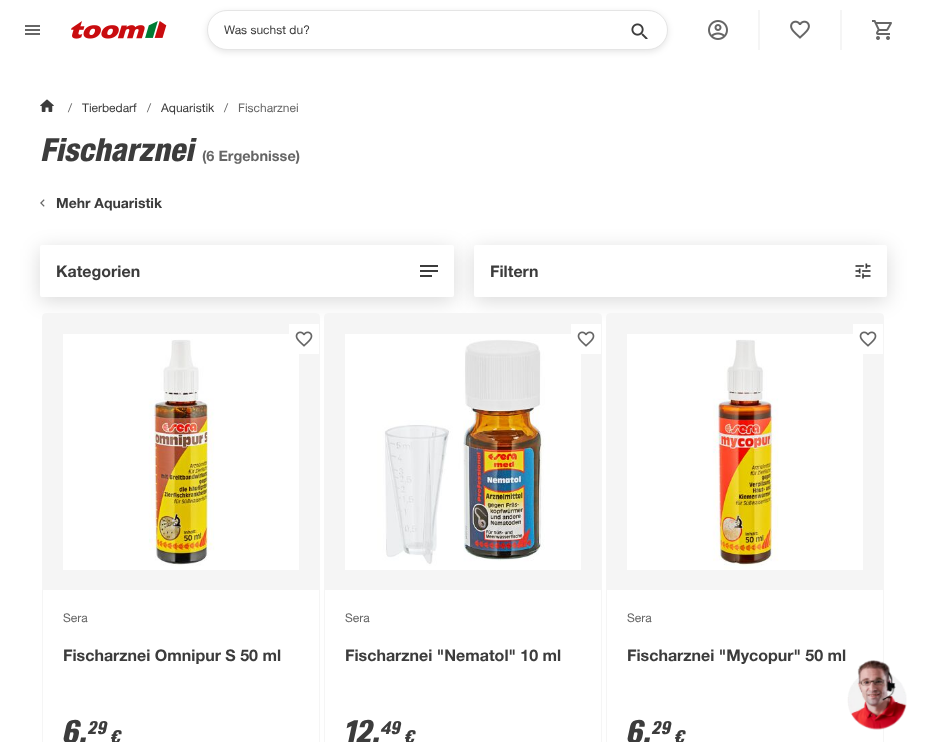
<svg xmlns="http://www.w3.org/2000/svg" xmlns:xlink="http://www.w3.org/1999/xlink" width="927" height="742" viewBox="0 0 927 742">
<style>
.cls-1{font:12px 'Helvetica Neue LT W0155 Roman';fill:#3c3c3c}
.cls-2{font:12px 'Helvetica Neue LT W0155 Roman';fill:#666666}
.cls-3{font:bold 32px 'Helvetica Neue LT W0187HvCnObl';fill:#3c3c3c}
.cls-4{font:bold 14.5px 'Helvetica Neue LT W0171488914';fill:#666666}
.cls-5{font:bold 14px 'Helvetica Neue LT W0171488914';fill:#3c3c3c}
.cls-6{font:bold 16px 'Helvetica Neue LT W0171488914';fill:#3c3c3c}
.cls-7{font:12px Helvetica Neue;fill:#666666}
.cls-8{font:bold 16px Helvetica Neue;fill:#3c3c3c}
.cls-9{font:italic bold 32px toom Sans;fill:#3c3c3c}
.cls-10{font:italic bold 18px toom Sans;fill:#3c3c3c}
</style>
<rect width="100%" height="100%" fill="#ffffff"/>
<image xlink:href="image0.png" x="25" y="25" width="15" height="10"/>
<image xlink:href="image1.png" x="71" y="21" width="96" height="18"/>
<rect fill="#000000" fill-opacity="0.1" filter="blur(3px)" x="207" y="12" width="461" height="40" rx="20"/>
<rect fill="#ffffff" stroke="#e5e5e5" x="207.5" y="10.5" width="460" height="39" rx="19.5"/>
<image xlink:href="image2.png" x="631" y="23" width="17" height="16"/>
<rect fill="#f5f5f5" x="758" y="10" width="2" height="40"/>
<image xlink:href="image3.png" x="708" y="20" width="20" height="20"/>
<rect fill="#f5f5f5" x="840" y="10" width="2" height="40"/>
<image xlink:href="image4.png" x="790" y="20" width="20" height="19"/>
<image xlink:href="image5.png" x="872" y="20" width="20" height="20"/>
<image xlink:href="image6.png" x="40" y="99" width="14" height="13"/>
<image xlink:href="image7.png" x="40" y="199" width="5" height="8"/>
<rect fill="#000000" fill-opacity="0.15" filter="blur(10px)" x="40" y="249" width="414" height="52" rx="2"/>
<rect fill="#ffffff" x="40" y="245" width="414" height="52" rx="2"/>
<image xlink:href="image8.png" x="420" y="265" width="18" height="12"/>
<rect fill="#000000" fill-opacity="0.15" filter="blur(10px)" x="474" y="249" width="413" height="52" rx="2"/>
<rect fill="#ffffff" x="474" y="245" width="413" height="52" rx="2"/>
<image xlink:href="image9.png" x="855" y="263" width="16" height="16"/>
<rect fill="#ffffff" stroke="#f5f5f5" x="42.5" y="313.5" width="277" height="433" rx="3.5"/>
<rect fill="#f5f5f5" x="43" y="314" width="276" height="276"/>
<image xlink:href="image11.png" x="63" y="334" width="236" height="236"/>
<rect fill="#ffffff" x="289" y="324" width="30" height="30"/>
<image xlink:href="image10.png" x="295" y="331" width="18" height="16"/>
<rect fill="#ffffff" stroke="#f5f5f5" x="324.5" y="313.5" width="277" height="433" rx="3.5"/>
<rect fill="#f5f5f5" x="325" y="314" width="276" height="276"/>
<image xlink:href="image12.png" x="345" y="334" width="236" height="236"/>
<rect fill="#ffffff" x="571" y="324" width="30" height="30"/>
<image xlink:href="image10.png" x="577" y="331" width="18" height="16"/>
<rect fill="#ffffff" stroke="#f5f5f5" x="606.5" y="313.5" width="277" height="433" rx="3.5"/>
<rect fill="#f5f5f5" x="607" y="314" width="276" height="276"/>
<image xlink:href="image13.png" x="627" y="334" width="236" height="236"/>
<rect fill="#ffffff" x="853" y="324" width="30" height="30"/>
<image xlink:href="image10.png" x="859" y="331" width="18" height="16"/>
<image xlink:href="image14.png" x="847" y="660" width="60" height="70"/>
<text class="cls-1" x="224" y="34">Was suchst du?</text>
<text class="cls-2" x="68" y="112">/</text>
<text class="cls-1" x="82" y="112">Tierbedarf</text>
<text class="cls-2" x="147" y="112">/</text>
<text class="cls-1" x="161" y="112">Aquaristik</text>
<text class="cls-2" x="224" y="112">/</text>
<text class="cls-2" x="238" y="112">Fischarznei</text>
<text class="cls-3" x="40" y="161">Fischarznei</text>
<text class="cls-4" x="202" y="161">(6 Ergebnisse)</text>
<text class="cls-5" x="56" y="208">Mehr Aquaristik</text>
<text class="cls-6" x="56" y="277">Kategorien</text>
<text class="cls-6" x="490" y="277">Filtern</text>
<text class="cls-7" x="63" y="622">Sera</text>
<text class="cls-8" x="63" y="661">Fischarznei Omnipur S 50 ml</text>
<text class="cls-9" x="63" y="743">6,</text>
<text class="cls-10" x="88" y="734">29</text>
<text class="cls-10" x="111" y="743">€</text>
<text class="cls-7" x="345" y="622">Sera</text>
<text class="cls-8" x="345" y="661">Fischarznei "Nematol" 10 ml</text>
<text class="cls-9" x="345" y="743">12,</text>
<text class="cls-10" x="381" y="734">49</text>
<text class="cls-10" x="405" y="743">€</text>
<text class="cls-7" x="627" y="622">Sera</text>
<text class="cls-8" x="627" y="661">Fischarznei "Mycopur" 50 ml</text>
<text class="cls-9" x="627" y="743">6,</text>
<text class="cls-10" x="652" y="734">29</text>
<text class="cls-10" x="675" y="743">€</text>
</svg>
